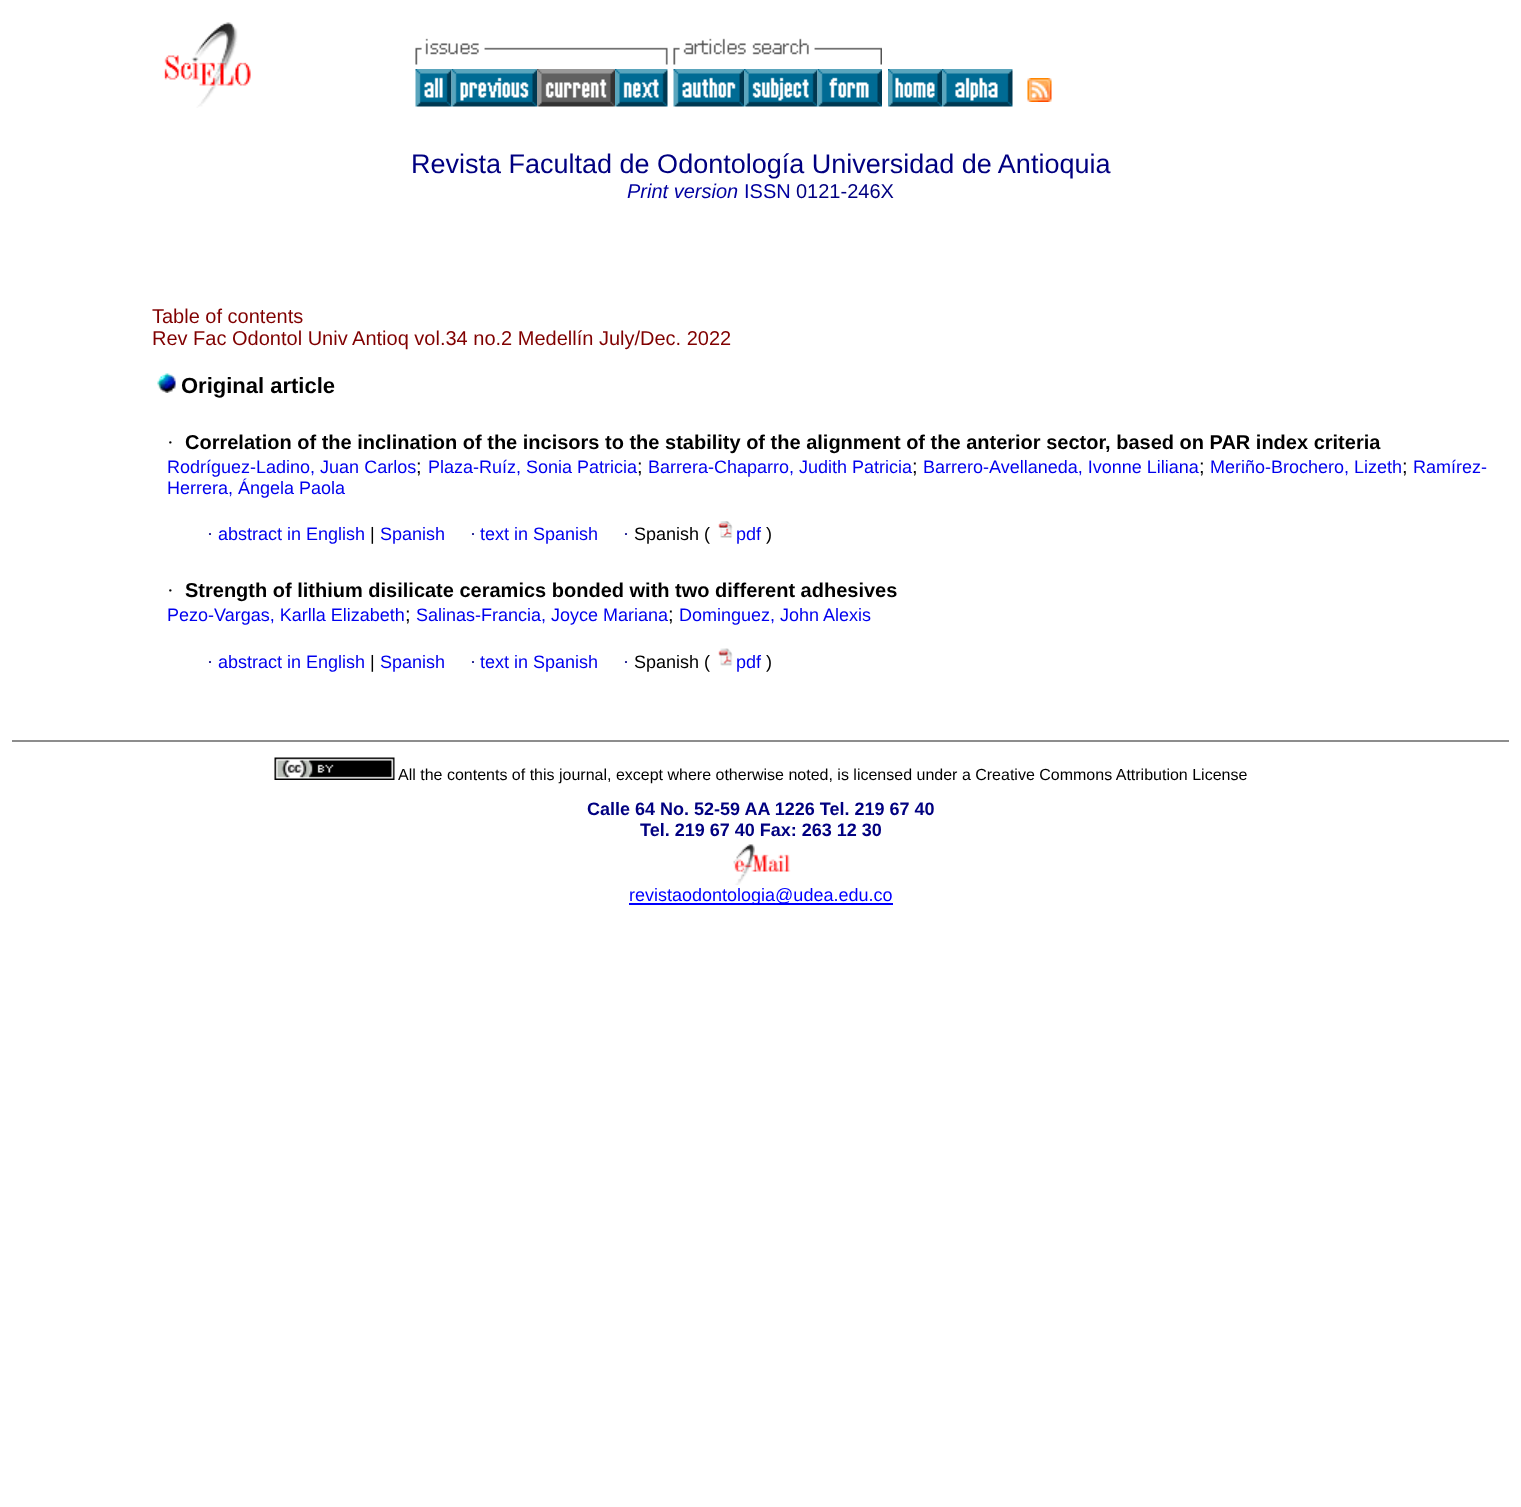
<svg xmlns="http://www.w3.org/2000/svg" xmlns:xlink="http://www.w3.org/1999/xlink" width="1521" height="1507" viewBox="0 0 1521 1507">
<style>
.cls-1{font:27px Liberation Sans;fill:#000080}
.cls-2{font:italic 20px Liberation Sans;fill:#0000a0}
.cls-3{font:20px Liberation Sans;fill:#0000a0}
.cls-4{font:20px Liberation Sans;fill:#000080}
.cls-5{font:20px Liberation Sans;fill:#800000}
.cls-6{font:bold 22px Liberation Sans;fill:#000000}
.cls-7{font:20px Liberation Serif;fill:#000000}
.cls-8{font:bold 20px Liberation Sans;fill:#000000}
.cls-9{font:18px Liberation Sans;fill:#0000ee}
.cls-10{font:20px Liberation Sans;fill:#000000}
.cls-11{font:18px Liberation Serif;fill:#000080}
.cls-12{font:18px Liberation Sans;fill:#000000}
.cls-13{font:16px Liberation Sans;fill:#000000}
.cls-14{font:bold 18px Liberation Sans;fill:#000080}
.cls-15{font:18px Liberation Sans;fill:#0000ff}
</style>
<rect width="100%" height="100%" fill="#ffffff"/>
<image xlink:href="image0.png" x="164" y="22" width="87" height="86"/>
<image xlink:href="image1.png" x="415" y="38" width="253" height="27"/>
<image xlink:href="image2.png" x="673" y="38" width="209" height="27"/>
<image xlink:href="image3.png" x="415" y="69" width="37" height="38"/>
<image xlink:href="image4.png" x="451" y="69" width="86" height="38"/>
<image xlink:href="image5.png" x="537" y="69" width="78" height="38"/>
<image xlink:href="image6.png" x="615" y="69" width="53" height="38"/>
<image xlink:href="image7.png" x="673" y="69" width="71" height="38"/>
<image xlink:href="image8.png" x="744" y="69" width="74" height="38"/>
<image xlink:href="image9.png" x="817" y="69" width="65" height="38"/>
<image xlink:href="image10.png" x="888" y="69" width="54" height="38"/>
<image xlink:href="image11.png" x="942" y="69" width="71" height="38"/>
<image xlink:href="image12.png" x="1027" y="78" width="25" height="24"/>
<rect fill="#8d8d8d" x="12" y="740" width="1497" height="2"/>
<image xlink:href="image13.png" x="157" y="373" width="19" height="20"/>
<image xlink:href="image14.png" x="718" y="521" width="15" height="17"/>
<image xlink:href="image15.png" x="718" y="648" width="15" height="18"/>
<image xlink:href="image16.png" x="274" y="757" width="121" height="23"/>
<image xlink:href="image17.png" x="733" y="844" width="58" height="41"/>
<rect fill="#0000ff" x="629" y="903" width="264" height="2"/>
<text class="cls-1" x="411" y="173">Revista Facultad de Odontología Universidad de Antioquia</text>
<text class="cls-2" x="627" y="198">Print version</text>
<text class="cls-3" x="744" y="198">ISSN</text>
<text class="cls-4" x="796" y="198">0121-246X</text>
<text class="cls-5"><tspan x="152" y="323">Table of contents</tspan><tspan x="152" y="345">Rev Fac Odontol Univ Antioq vol.34 no.2 Medellín July/Dec. 2022</tspan></text>
<text class="cls-6" x="181" y="393">Original article</text>
<text class="cls-7" x="167" y="449">·</text>
<text class="cls-8" x="185" y="449">Correlation of the inclination of the incisors to the stability of the alignment of the anterior sector, based on PAR index criteria</text>
<text class="cls-9" x="167" y="473">Rodríguez-Ladino, Juan Carlos</text>
<text class="cls-10" x="416" y="473">;</text>
<text class="cls-9" x="428" y="473">Plaza-Ruíz, Sonia Patricia</text>
<text class="cls-10" x="637" y="473">;</text>
<text class="cls-9" x="648" y="473">Barrera-Chaparro, Judith Patricia</text>
<text class="cls-10" x="912" y="473">;</text>
<text class="cls-9" x="923" y="473">Barrero-Avellaneda, Ivonne Liliana</text>
<text class="cls-10" x="1199" y="473">;</text>
<text class="cls-9" x="1210" y="473">Meriño-Brochero, Lizeth</text>
<text class="cls-10" x="1402" y="473">;</text>
<text class="cls-9" x="1413" y="473">Ramírez-</text>
<text class="cls-9" x="167" y="494">Herrera, Ángela Paola</text>
<text class="cls-11" x="207" y="540">·</text>
<text class="cls-9" x="218" y="540">abstract in English</text>
<text class="cls-12" x="370" y="540">|</text>
<text class="cls-9" x="380" y="540">Spanish</text>
<text class="cls-11" x="470" y="540">·</text>
<text class="cls-9" x="480" y="540">text in Spanish</text>
<text class="cls-11" x="623" y="540">·</text>
<text class="cls-12" x="634" y="540">Spanish (</text>
<text class="cls-9" x="736" y="540">pdf</text>
<text class="cls-12" x="766" y="540">)</text>
<text class="cls-7" x="167" y="597">·</text>
<text class="cls-8" x="185" y="597">Strength of lithium disilicate ceramics bonded with two different adhesives</text>
<text class="cls-9" x="167" y="621">Pezo-Vargas, Karlla Elizabeth</text>
<text class="cls-10" x="405" y="621">;</text>
<text class="cls-9" x="416" y="621">Salinas-Francia, Joyce Mariana</text>
<text class="cls-10" x="668" y="621">;</text>
<text class="cls-9" x="679" y="621">Dominguez, John Alexis</text>
<text class="cls-11" x="207" y="668">·</text>
<text class="cls-9" x="218" y="668">abstract in English</text>
<text class="cls-12" x="370" y="668">|</text>
<text class="cls-9" x="380" y="668">Spanish</text>
<text class="cls-11" x="470" y="668">·</text>
<text class="cls-9" x="480" y="668">text in Spanish</text>
<text class="cls-11" x="623" y="668">·</text>
<text class="cls-12" x="634" y="668">Spanish (</text>
<text class="cls-9" x="736" y="668">pdf</text>
<text class="cls-12" x="766" y="668">)</text>
<text class="cls-13" x="398" y="780">All the contents of this journal, except where otherwise noted, is licensed under a Creative Commons Attribution License</text>
<text class="cls-14" x="587" y="815">Calle 64 No. 52-59 AA 1226 Tel. 219 67 40</text>
<text class="cls-14" x="640" y="836">Tel. 219 67 40 Fax: 263 12 30</text>
<text class="cls-15" x="629" y="901">revistaodontologia@udea.edu.co</text>
</svg>
